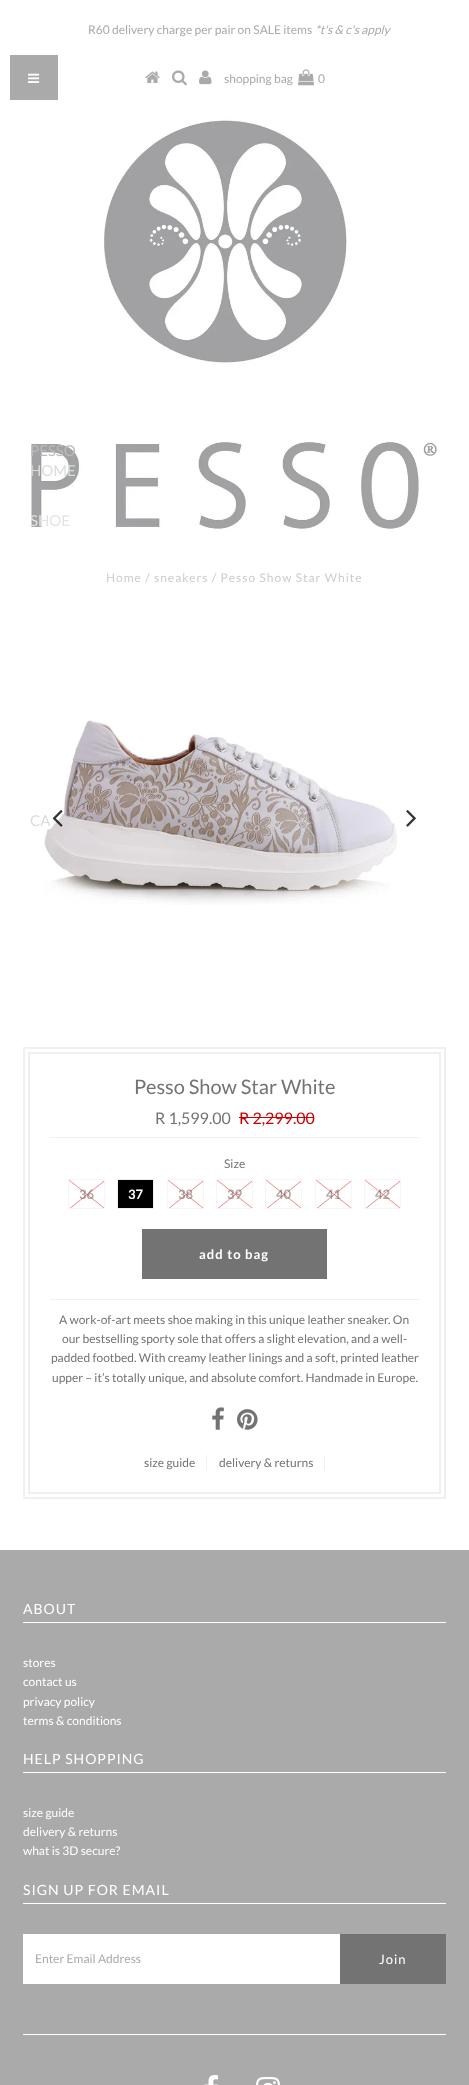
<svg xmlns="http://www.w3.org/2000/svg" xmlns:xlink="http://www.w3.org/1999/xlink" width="469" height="2085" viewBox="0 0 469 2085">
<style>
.cls-1{font:12px Lato;fill:#aaaaaa}
.cls-2{font:italic 12px Lato;fill:#aaaaaa}
.cls-3{font:15px Lato;fill:#bababc}
.cls-4{font:15px Lato;fill:#dadbdb}
.cls-5{font:15px Lato;fill:#e3e3e3}
.cls-6{font:12px Lato;letter-spacing:1px;fill:#cccccc}
.cls-7{font:20px Lato;fill:#747373}
.cls-8{font:16px Lato;fill:#747373}
.cls-9{font:16px Lato;fill:#cc0000}
.cls-10{font:12px Lato;fill:#747373}
.cls-11{font:bold 13px Lato;fill:#aaaaaa}
.cls-12{font:bold 13px Lato;fill:#ffffff}
.cls-13{font:bold 13px Lato;letter-spacing:1px;fill:#ffffff}
.cls-14{font:14px Lato;letter-spacing:1px;fill:#ffffff}
.cls-15{font:12px Lato;fill:#ffffff}
.cls-16{font:13px Lato;letter-spacing:1px;fill:#ffffff}
</style>
<rect width="100%" height="100%" fill="#ffffff"/>
<image xlink:href="image0.png" x="145" y="71" width="15" height="12"/>
<image xlink:href="image1.png" x="172" y="70" width="15" height="16"/>
<image xlink:href="image2.png" x="199" y="70" width="13" height="15"/>
<image xlink:href="image3.png" x="298" y="69" width="16" height="17"/>
<image xlink:href="image4.png" x="31" y="119" width="407" height="410"/>
<rect fill="#aaaaaa" x="10" y="55" width="48" height="45"/>
<image xlink:href="image5.png" x="28" y="73" width="12" height="10"/>
<image xlink:href="image6.png" x="44" y="720" width="353" height="185"/>
<image xlink:href="image7.png" x="52" y="810" width="11" height="17"/>
<image xlink:href="image8.png" x="406" y="810" width="10" height="17"/>
<rect fill="none" stroke="#f0f0f0" stroke-width="2" x="24" y="1048" width="421" height="450"/>
<rect fill="none" stroke="#f0f0f0" stroke-width="2" x="29" y="1053" width="411" height="440"/>
<rect fill="#cc0000" x="239" y="1117" width="75" height="1"/>
<rect fill="#f0f0f0" x="50" y="1137" width="369" height="1"/>
<rect fill="#f0f0f0" x="50" y="1299" width="369" height="1"/>
<rect fill="none" stroke="#f5f5f5" x="68.5" y="1179.5" width="36" height="29"/>
<rect fill="#000000" stroke="#eeeeee" x="117.5" y="1179.5" width="36" height="29"/>
<rect fill="none" stroke="#f5f5f5" x="167.5" y="1179.5" width="36" height="29"/>
<rect fill="none" stroke="#f5f5f5" x="216.5" y="1179.5" width="36" height="29"/>
<rect fill="none" stroke="#f5f5f5" x="265.5" y="1179.5" width="36" height="29"/>
<rect fill="none" stroke="#f5f5f5" x="315.5" y="1179.5" width="36" height="29"/>
<rect fill="none" stroke="#f5f5f5" x="364.5" y="1179.5" width="36" height="29"/>
<rect fill="#747373" x="142" y="1229" width="185" height="50"/>
<image xlink:href="image15.png" x="212" y="1407" width="12" height="23"/>
<image xlink:href="image16.png" x="237" y="1409" width="21" height="21"/>
<rect fill="#f0f0f0" x="206" y="1455" width="1" height="15"/>
<rect fill="#f0f0f0" x="324" y="1455" width="1" height="15"/>
<rect fill="#aaaaaa" x="0" y="1550" width="469" height="535"/>
<rect fill="#ffffff" x="23" y="1622" width="423" height="1"/>
<rect fill="#ffffff" x="23" y="1772" width="423" height="1"/>
<rect fill="#ffffff" x="23" y="1903" width="423" height="1"/>
<rect fill="#ffffff" x="23" y="1934" width="317" height="50"/>
<rect fill="#747373" x="340" y="1934" width="106" height="50"/>
<rect fill="#ffffff" x="23" y="2034" width="423" height="1"/>
<image xlink:href="image17.png" x="204" y="2075" width="14" height="10"/>
<image xlink:href="image18.png" x="256" y="2077" width="24" height="8"/>
<text class="cls-1" x="88" y="34">R60 delivery charge per pair on SALE items</text>
<text class="cls-2" x="315" y="34">*t's &amp; c's apply</text>
<text class="cls-1" x="224" y="83">shopping bag</text>
<text class="cls-1" x="318" y="83">0</text>
<text class="cls-3" x="30" y="456">PESSO</text>
<text class="cls-4" x="30" y="476">HOME</text>
<text class="cls-5" x="30" y="526">SHOE</text>
<text class="cls-4" x="30" y="826">CA</text>
<text class="cls-6" x="106" y="582">Home / sneakers / Pesso Show Star White</text>
<text class="cls-7" x="134" y="1094">Pesso Show Star White</text>
<text class="cls-8" x="155" y="1124">R 1,599.00</text>
<text class="cls-9" x="239" y="1124">R 2,299.00</text>
<text class="cls-10" x="224" y="1168">Size</text>
<text class="cls-11" x="79" y="1199">36</text>
<image xlink:href="image9.png" x="69" y="1180" width="35" height="28"/>
<text class="cls-12" x="128" y="1199">37</text>
<text class="cls-11" x="178" y="1199">38</text>
<image xlink:href="image10.png" x="168" y="1180" width="35" height="28"/>
<text class="cls-11" x="227" y="1199">39</text>
<image xlink:href="image11.png" x="217" y="1180" width="35" height="28"/>
<text class="cls-11" x="276" y="1199">40</text>
<image xlink:href="image12.png" x="266" y="1180" width="35" height="28"/>
<text class="cls-11" x="326" y="1199">41</text>
<image xlink:href="image13.png" x="316" y="1180" width="35" height="28"/>
<text class="cls-11" x="375" y="1199">42</text>
<image xlink:href="image14.png" x="365" y="1180" width="35" height="28"/>
<text class="cls-13" x="199" y="1259">add to bag</text>
<text class="cls-10" x="59" y="1324">A work-of-art meets shoe making in this unique leather sneaker. On</text>
<text class="cls-10" x="62" y="1343">our bestselling sporty sole that offers a slight elevation, and a well-</text>
<text class="cls-10" x="51" y="1362">padded footbed. With creamy leather linings and a soft, printed leather</text>
<text class="cls-10" x="52" y="1382">upper – it’s totally unique, and absolute comfort. Handmade in Europe.</text>
<text class="cls-10" x="144" y="1467">size guide</text>
<text class="cls-10" x="219" y="1467">delivery &amp; returns</text>
<text class="cls-14" x="23" y="1614">ABOUT</text>
<text class="cls-15"><tspan x="23" y="1667">stores</tspan><tspan x="23" y="1686">contact us</tspan><tspan x="23" y="1706">privacy policy</tspan><tspan x="23" y="1725">terms &amp; conditions</tspan></text>
<text class="cls-14" x="23" y="1764">HELP SHOPPING</text>
<text class="cls-15"><tspan x="23" y="1817">size guide</tspan><tspan x="23" y="1836">delivery &amp; returns</tspan><tspan x="23" y="1855">what is 3D secure?</tspan></text>
<text class="cls-14" x="23" y="1895">SIGN UP FOR EMAIL</text>
<text class="cls-1" x="35" y="1963">Enter Email Address</text>
<text class="cls-16" x="379" y="1964">Join</text>
</svg>
